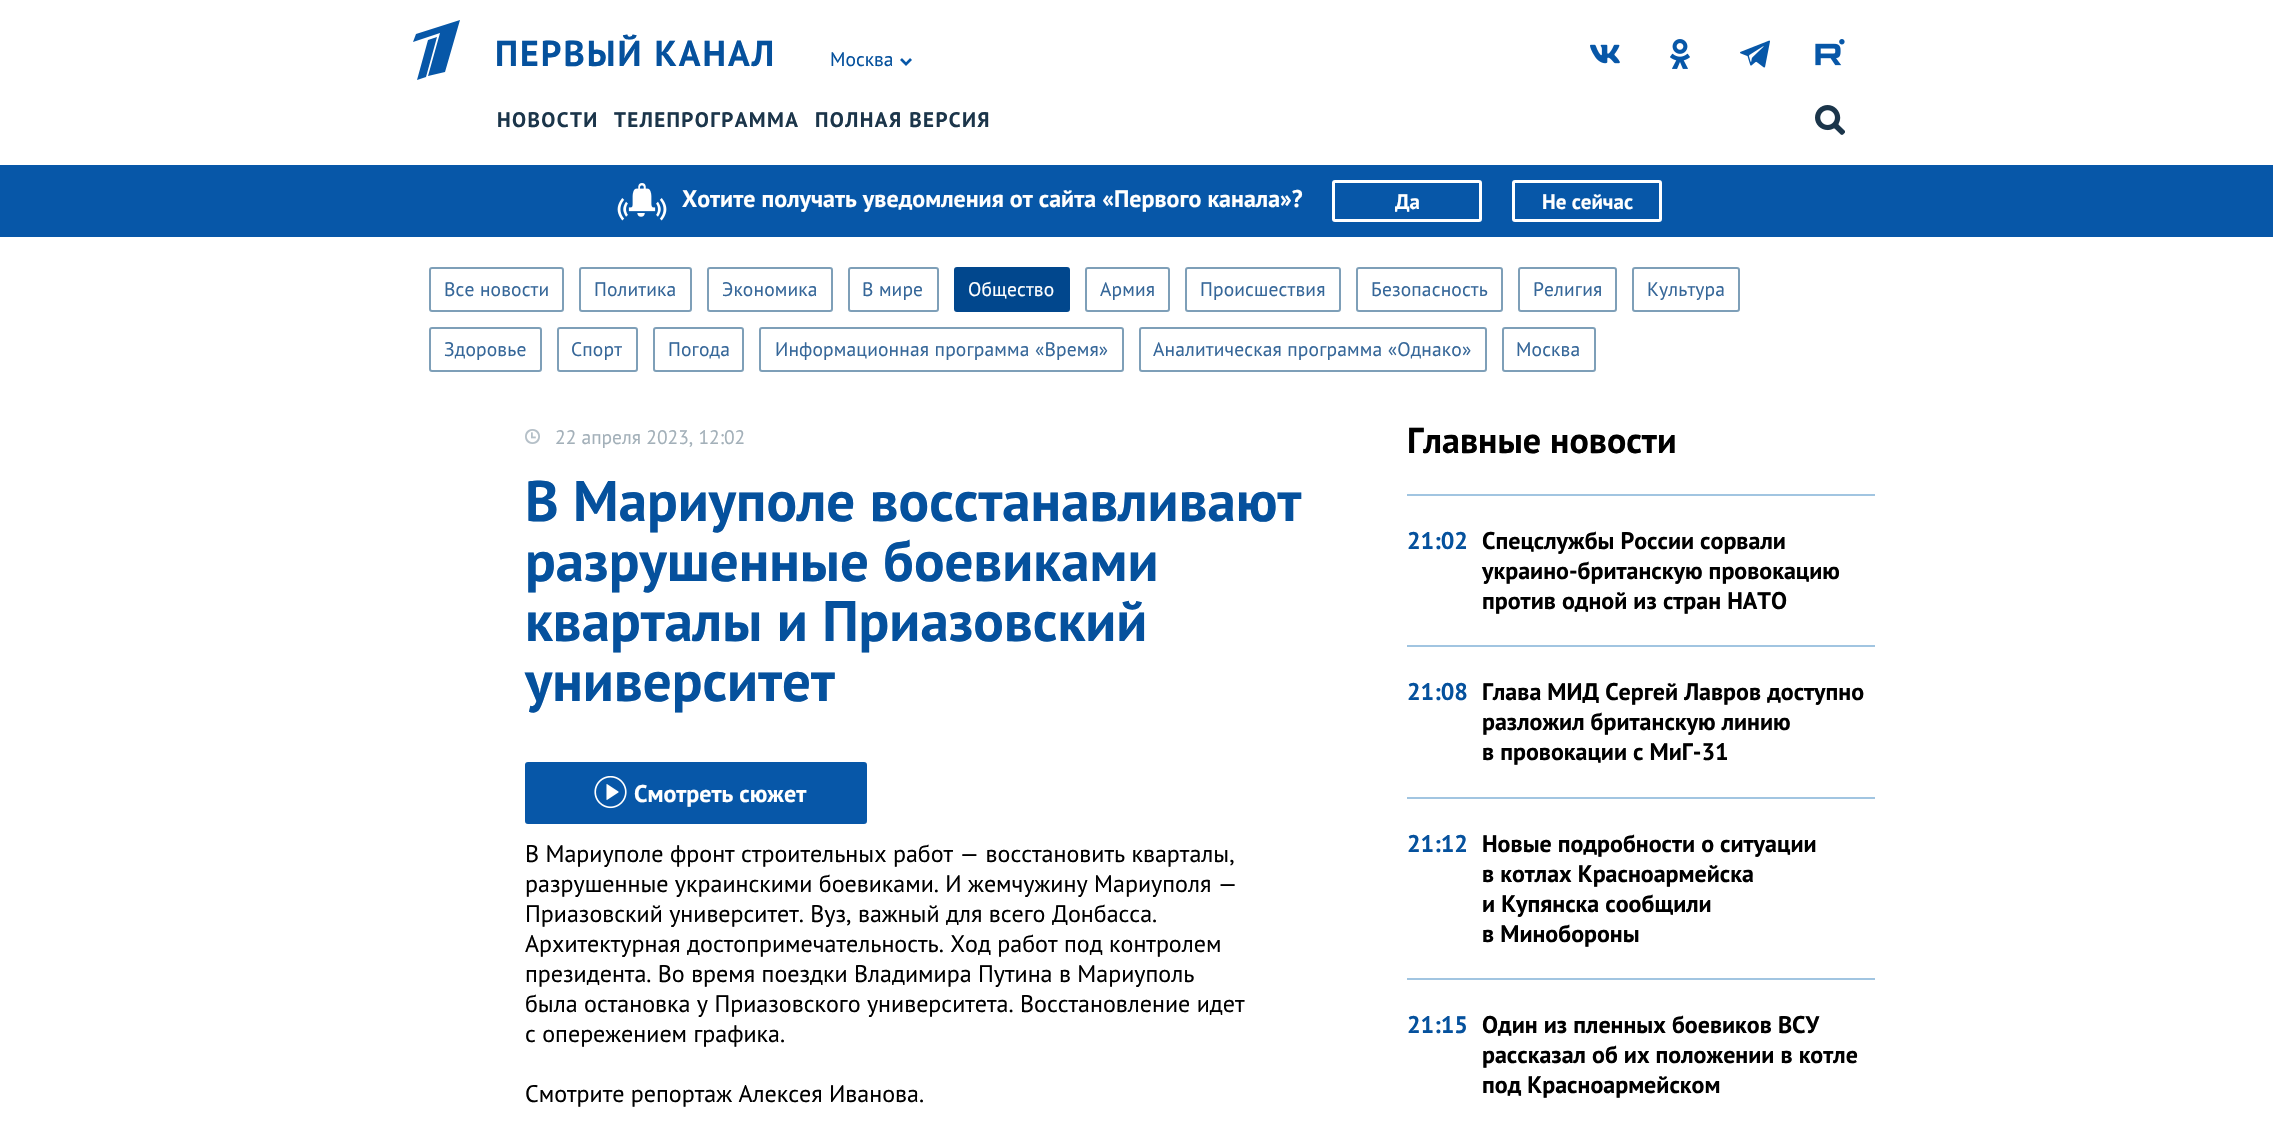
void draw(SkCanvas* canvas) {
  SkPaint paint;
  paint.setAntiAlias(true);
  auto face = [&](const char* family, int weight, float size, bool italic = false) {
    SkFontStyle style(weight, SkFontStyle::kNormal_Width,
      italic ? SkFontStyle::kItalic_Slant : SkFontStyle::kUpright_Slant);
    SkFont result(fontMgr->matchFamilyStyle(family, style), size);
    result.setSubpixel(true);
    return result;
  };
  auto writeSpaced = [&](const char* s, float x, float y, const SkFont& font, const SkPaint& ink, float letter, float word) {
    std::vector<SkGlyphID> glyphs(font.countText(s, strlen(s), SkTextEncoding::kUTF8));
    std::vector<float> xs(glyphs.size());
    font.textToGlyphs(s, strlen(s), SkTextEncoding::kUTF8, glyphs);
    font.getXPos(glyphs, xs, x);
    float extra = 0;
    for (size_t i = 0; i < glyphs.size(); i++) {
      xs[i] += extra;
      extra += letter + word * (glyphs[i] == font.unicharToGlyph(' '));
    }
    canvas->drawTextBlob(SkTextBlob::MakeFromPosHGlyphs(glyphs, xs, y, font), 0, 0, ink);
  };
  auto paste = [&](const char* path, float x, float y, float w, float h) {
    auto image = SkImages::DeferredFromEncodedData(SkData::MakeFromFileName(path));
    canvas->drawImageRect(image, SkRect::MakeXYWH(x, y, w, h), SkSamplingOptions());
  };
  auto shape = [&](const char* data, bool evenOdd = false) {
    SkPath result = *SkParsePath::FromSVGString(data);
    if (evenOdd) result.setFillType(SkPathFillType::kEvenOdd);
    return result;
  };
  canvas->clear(0xffffffff);
  paint.setColor(0xff0757a8);
  canvas->drawPath(shape("M416 34L413 42L440 33L428 76L445 72L460 20ZM428 40L417 80L426 77L437 37Z"), paint);
  paste("img/1.png", 900, 58, 12, 8);
  paste("img/2.png", 1590, 44, 30, 20);
  paste("img/3.png", 1670, 39, 20, 30);
  paste("img/4.png", 1740, 40, 30, 28);
  paste("img/5.png", 1815, 39, 30, 27);
  paste("img/6.png", 1815, 105, 30, 30);
  canvas->drawRect(SkRect::MakeXYWH(0, 165, 2273, 72), paint);
  paste("img/7.png", 617, 183, 50, 38);
  paint.setStroke(true);
  paint.setStrokeWidth(3);
  paint.setColor(0xffffffff);
  canvas->drawRoundRect(SkRect::MakeXYWH(1333.5f, 181.5f, 147, 39), 1.5f, 1.5f, paint);
  canvas->drawRoundRect(SkRect::MakeXYWH(1513.5f, 181.5f, 147, 39), 1.5f, 1.5f, paint);
  paint.setStrokeWidth(2);
  paint.setColor(0xff7e9fb8);
  canvas->drawRoundRect(SkRect::MakeXYWH(430, 268, 133, 43), 2, 2, paint);
  canvas->drawRoundRect(SkRect::MakeXYWH(580, 268, 111, 43), 2, 2, paint);
  canvas->drawRoundRect(SkRect::MakeXYWH(708, 268, 124, 43), 2, 2, paint);
  canvas->drawRoundRect(SkRect::MakeXYWH(849, 268, 89, 43), 2, 2, paint);
  paint.setStroke(false);
  paint.setColor(0xff01478d);
  canvas->drawRoundRect(SkRect::MakeXYWH(955, 268, 114, 43), 2, 2, paint);
  paint.setStroke(true);
  canvas->drawRoundRect(SkRect::MakeXYWH(955, 268, 114, 43), 2, 2, paint);
  paint.setColor(0xff7e9fb8);
  canvas->drawRoundRect(SkRect::MakeXYWH(1086, 268, 83, 43), 2, 2, paint);
  canvas->drawRoundRect(SkRect::MakeXYWH(1186, 268, 154, 43), 2, 2, paint);
  canvas->drawRoundRect(SkRect::MakeXYWH(1357, 268, 145, 43), 2, 2, paint);
  canvas->drawRoundRect(SkRect::MakeXYWH(1519, 268, 97, 43), 2, 2, paint);
  canvas->drawRoundRect(SkRect::MakeXYWH(1633, 268, 106, 43), 2, 2, paint);
  canvas->drawRoundRect(SkRect::MakeXYWH(430, 328, 111, 43), 2, 2, paint);
  canvas->drawRoundRect(SkRect::MakeXYWH(558, 328, 79, 43), 2, 2, paint);
  canvas->drawRoundRect(SkRect::MakeXYWH(654, 328, 89, 43), 2, 2, paint);
  canvas->drawRoundRect(SkRect::MakeXYWH(760, 328, 363, 43), 2, 2, paint);
  canvas->drawRoundRect(SkRect::MakeXYWH(1140, 328, 346, 43), 2, 2, paint);
  canvas->drawRoundRect(SkRect::MakeXYWH(1503, 328, 92, 43), 2, 2, paint);
  paste("img/8.png", 525, 429, 15, 15);
  paint.setStroke(false);
  paint.setColor(0xff0757a8);
  canvas->drawRoundRect(SkRect::MakeXYWH(526.5f, 763.5f, 339, 59), 1.5f, 1.5f, paint);
  paint.setStroke(true);
  paint.setStrokeWidth(3);
  canvas->drawRoundRect(SkRect::MakeXYWH(526.5f, 763.5f, 339, 59), 1.5f, 1.5f, paint);
  paste("img/9.png", 594, 776, 33, 33);
  paint.setStroke(false);
  {
    const struct { float x, y, w, h; SkColor color; } items[] = {
      {1407, 494, 468, 2, 0xffa1c5e1},
      {1407, 645, 468, 2, 0xffa1c5e1},
      {1407, 797, 468, 2, 0xffa1c5e1},
      {1407, 978, 468, 2, 0xffa1c5e1},
    };
    for (auto [x, y, w, h, color] : items) {
      paint.setColor(color);
      canvas->drawRect(SkRect::MakeXYWH(x, y, w, h), paint);
    }
  }
  auto f0 = face("PT Sans", 700, 36);
  paint.setColor(0xff05519d);
  writeSpaced("ПЕРВЫЙ КАНАЛ", 495, 66, f0, paint, 2, 0);
  auto f1 = face("PT Sans", 400, 19.5f);
  canvas->drawString("Москва", 830, 66, f1, paint);
  auto f2 = face("PT Sans", 700, 21);
  paint.setColor(0xff1b354a);
  {
    const struct { const char* s; float x, y; } items[] = {
      {"НОВОСТИ", 497, 127},
      {"ТЕЛЕПРОГРАММА", 614, 127},
      {"ПОЛНАЯ ВЕРСИЯ", 815, 127},
    };
    for (auto [s, x, y] : items) {
      writeSpaced(s, x, y, f2, paint, 1.4f, 0);
    }
  }
  auto f3 = face("PT Sans", 700, 24);
  paint.setColor(0xffffffff);
  canvas->drawString("Хотите получать уведомления от сайта «Первого канала»?", 682, 207, f3, paint);
  canvas->drawString("Да", 1395, 209, f2, paint);
  canvas->drawString("Не сейчас", 1542, 209, f2, paint);
  paint.setColor(0xff366799);
  {
    const struct { const char* s; float x, y; } items[] = {
      {"Все новости", 444, 296},
      {"Политика", 594, 296},
      {"Экономика", 722, 296},
      {"В мире", 862, 296},
    };
    for (auto [s, x, y] : items) {
      writeSpaced(s, x, y, f1, paint, 0.15f, 0);
    }
  }
  paint.setColor(0xffffffff);
  writeSpaced("Общество", 968, 296, f1, paint, 0.15f, 0);
  paint.setColor(0xff366799);
  {
    const struct { const char* s; float x, y; } items[] = {
      {"Армия", 1100, 296},
      {"Происшествия", 1200, 296},
      {"Безопасность", 1371, 296},
      {"Религия", 1533, 296},
      {"Культура", 1647, 296},
      {"Здоровье", 444, 356},
      {"Спорт", 571, 356},
      {"Погода", 668, 356},
      {"Информационная программа «Время»", 775, 356},
      {"Аналитическая программа «Однако»", 1153, 356},
      {"Москва", 1516, 356},
    };
    for (auto [s, x, y] : items) {
      writeSpaced(s, x, y, f1, paint, 0.15f, 0);
    }
  }
  paint.setColor(0xffa3b0b9);
  canvas->drawString("22 апреля 2023, 12:02", 555, 444, f1, paint);
  auto f4 = face("PT Sans", 700, 57);
  paint.setColor(0xff05519d);
  {
    const struct { const char* s; float x, y; } items[] = {
      {"В Мариуполе восстанавливают", 525, 521},
      {"разрушенные боевиками", 525, 581},
      {"кварталы и Приазовский", 525, 641},
      {"университет", 525, 701},
    };
    for (auto [s, x, y] : items) {
      canvas->drawString(s, x, y, f4, paint);
    }
  }
  paint.setColor(0xffffffff);
  canvas->drawString("Смотреть сюжет", 634, 802, f3, paint);
  auto f5 = face("PT Sans", 400, 24);
  paint.setColor(0xff000000);
  {
    const struct { const char* s; float x, y; } items[] = {
      {"В Мариуполе фронт строительных работ — восстановить кварталы,", 525, 862},
      {"разрушенные украинскими боевиками. И жемчужину Мариуполя —", 525, 892},
      {"Приазовский университет. Вуз, важный для всего Донбасса.", 525, 922},
      {"Архитектурная достопримечательность. Ход работ под контролем", 525, 952},
      {"президента. Во время поездки Владимира Путина в Мариуполь", 525, 982},
      {"была остановка у Приазовского университета. Восстановление идет", 525, 1012},
      {"с опережением графика.", 525, 1042},
      {"Смотрите репортаж Алексея Иванова.", 525, 1102},
    };
    for (auto [s, x, y] : items) {
      canvas->drawString(s, x, y, f5, paint);
    }
  }
  canvas->drawString("Главные новости", 1407, 453, f0, paint);
  paint.setColor(0xff05519d);
  canvas->drawString("21:02", 1407, 549, f3, paint);
  paint.setColor(0xff000000);
  {
    const struct { const char* s; float x, y; } items[] = {
      {"Спецслужбы России сорвали", 1482, 549},
      {"украино-британскую провокацию", 1482, 579},
      {"против одной из стран НАТО", 1482, 609},
    };
    for (auto [s, x, y] : items) {
      canvas->drawString(s, x, y, f3, paint);
    }
  }
  paint.setColor(0xff05519d);
  canvas->drawString("21:08", 1407, 700, f3, paint);
  paint.setColor(0xff000000);
  {
    const struct { const char* s; float x, y; } items[] = {
      {"Глава МИД Сергей Лавров доступно", 1482, 700},
      {"разложил британскую линию", 1482, 730},
      {"в провокации с МиГ-31", 1482, 760},
    };
    for (auto [s, x, y] : items) {
      canvas->drawString(s, x, y, f3, paint);
    }
  }
  paint.setColor(0xff05519d);
  canvas->drawString("21:12", 1407, 852, f3, paint);
  paint.setColor(0xff000000);
  {
    const struct { const char* s; float x, y; } items[] = {
      {"Новые подробности о ситуации", 1482, 852},
      {"в котлах Красноармейска", 1482, 882},
      {"и Купянска сообщили", 1482, 912},
      {"в Минобороны", 1482, 942},
    };
    for (auto [s, x, y] : items) {
      canvas->drawString(s, x, y, f3, paint);
    }
  }
  paint.setColor(0xff05519d);
  canvas->drawString("21:15", 1407, 1033, f3, paint);
  paint.setColor(0xff000000);
  {
    const struct { const char* s; float x, y; } items[] = {
      {"Один из пленных боевиков ВСУ", 1482, 1033},
      {"рассказал об их положении в котле", 1482, 1063},
      {"под Красноармейском", 1482, 1093},
    };
    for (auto [s, x, y] : items) {
      canvas->drawString(s, x, y, f3, paint);
    }
  }
}
